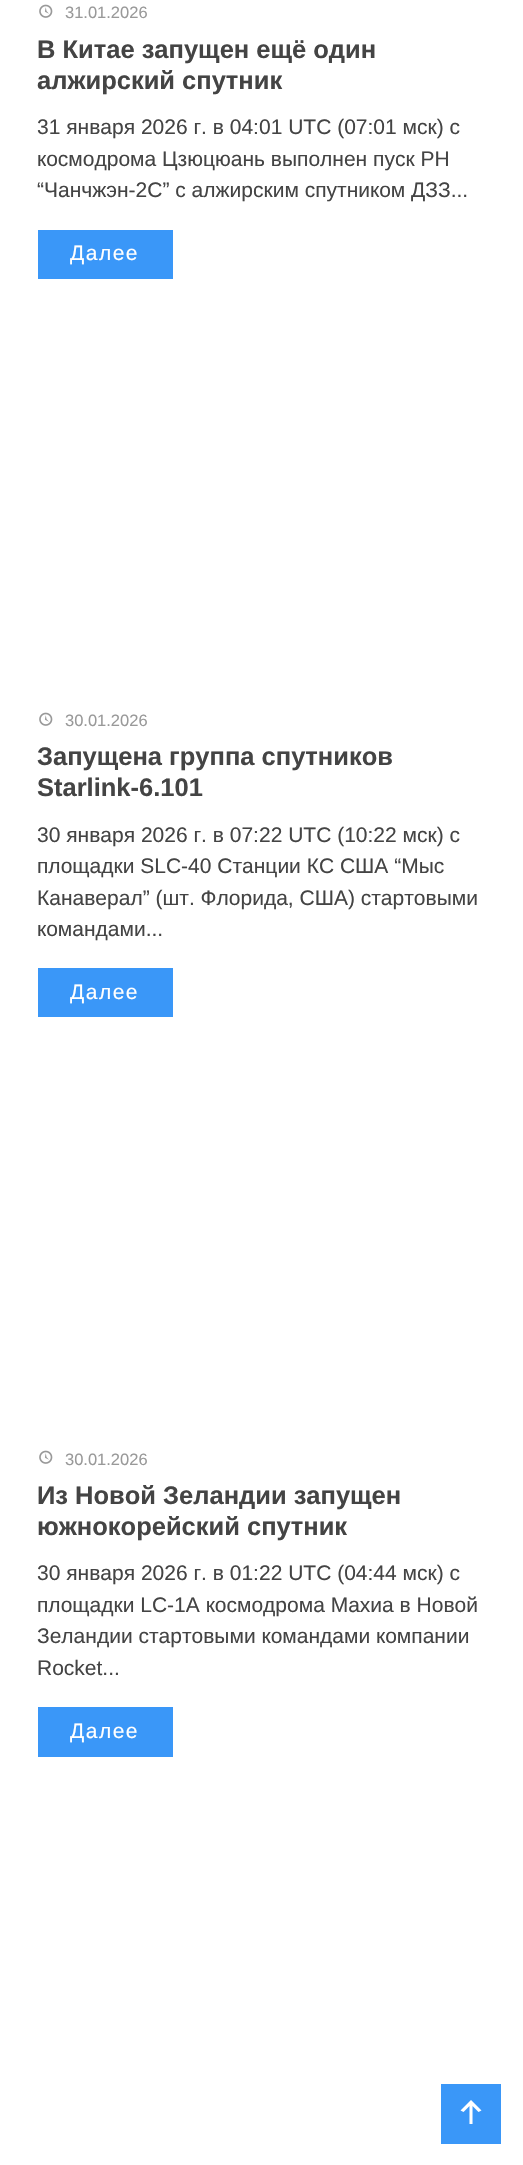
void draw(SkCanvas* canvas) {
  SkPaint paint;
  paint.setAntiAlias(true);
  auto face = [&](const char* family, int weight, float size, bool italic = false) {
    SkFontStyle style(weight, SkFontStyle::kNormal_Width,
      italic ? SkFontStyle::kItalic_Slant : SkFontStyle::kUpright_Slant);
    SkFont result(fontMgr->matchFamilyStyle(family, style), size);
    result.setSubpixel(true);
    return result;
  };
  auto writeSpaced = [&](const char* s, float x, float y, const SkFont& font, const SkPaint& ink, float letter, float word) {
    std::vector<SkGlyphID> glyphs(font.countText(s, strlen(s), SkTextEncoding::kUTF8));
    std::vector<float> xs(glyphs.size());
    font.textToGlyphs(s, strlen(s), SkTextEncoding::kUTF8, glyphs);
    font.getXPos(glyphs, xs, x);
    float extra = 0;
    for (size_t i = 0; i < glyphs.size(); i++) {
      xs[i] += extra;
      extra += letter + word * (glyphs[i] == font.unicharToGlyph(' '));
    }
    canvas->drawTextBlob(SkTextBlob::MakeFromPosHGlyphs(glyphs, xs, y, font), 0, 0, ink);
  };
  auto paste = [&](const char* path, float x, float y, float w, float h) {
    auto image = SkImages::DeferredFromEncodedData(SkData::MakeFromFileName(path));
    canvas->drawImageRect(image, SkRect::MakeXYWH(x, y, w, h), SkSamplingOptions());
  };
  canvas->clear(0xffffffff);
  paste("img/1.png", 39, 4, 14, 14);
  paint.setColor(0xff3a97f8);
  canvas->drawRect(SkRect::MakeXYWH(38, 230, 135, 49), paint);
  paste("img/1.png", 39, 712, 14, 14);
  canvas->drawRect(SkRect::MakeXYWH(38, 968, 135, 49), paint);
  paste("img/1.png", 39, 1450, 14, 14);
  canvas->drawRect(SkRect::MakeXYWH(38, 1707, 135, 50), paint);
  canvas->drawRect(SkRect::MakeXYWH(441, 2084, 60, 60), paint);
  paste("img/2.png", 460, 2100, 22, 24);
  auto f0 = face("Liberation Sans", 400, 16.5f);
  paint.setColor(0xff999999);
  canvas->drawString("31.01.2026", 65, 18, f0, paint);
  auto f1 = face("Liberation Sans", 700, 25.5f);
  paint.setColor(0xff444444);
  canvas->drawString("В Китае запущен ещё один", 37, 58, f1, paint);
  canvas->drawString("алжирский спутник", 37, 89, f1, paint);
  auto f2 = face("Liberation Sans", 400, 21);
  {
    const struct { const char* s; float x, y; } items[] = {
      {"31 января 2026 г. в 04:01 UTC (07:01 мск) с", 37, 134},
      {"космодрома Цзюцюань выполнен пуск РН", 37, 166},
      {"“Чанчжэн-2С” с алжирским спутником ДЗЗ...", 37, 197},
    };
    for (auto [s, x, y] : items) {
      canvas->drawString(s, x, y, f2, paint);
    }
  }
  paint.setColor(0xffffffff);
  writeSpaced("Далее", 70, 260, f2, paint, 1.5f, 0);
  paint.setColor(0xff999999);
  canvas->drawString("30.01.2026", 65, 726, f0, paint);
  paint.setColor(0xff444444);
  canvas->drawString("Запущена группа спутников", 37, 765, f1, paint);
  canvas->drawString("Starlink-6.101", 37, 796, f1, paint);
  {
    const struct { const char* s; float x, y; } items[] = {
      {"30 января 2026 г. в 07:22 UTC (10:22 мск) с", 37, 842},
      {"площадки SLC-40 Станции КС США “Мыс", 37, 873},
      {"Канаверал” (шт. Флорида, США) стартовыми", 37, 905},
      {"командами...", 37, 936},
    };
    for (auto [s, x, y] : items) {
      canvas->drawString(s, x, y, f2, paint);
    }
  }
  paint.setColor(0xffffffff);
  writeSpaced("Далее", 70, 999, f2, paint, 1.5f, 0);
  paint.setColor(0xff999999);
  canvas->drawString("30.01.2026", 65, 1465, f0, paint);
  paint.setColor(0xff444444);
  canvas->drawString("Из Новой Зеландии запущен", 37, 1504, f1, paint);
  canvas->drawString("южнокорейский спутник", 37, 1535, f1, paint);
  {
    const struct { const char* s; float x, y; } items[] = {
      {"30 января 2026 г. в 01:22 UTC (04:44 мск) с", 37, 1580},
      {"площадки LC-1А космодрома Махиа в Новой", 37, 1612},
      {"Зеландии стартовыми командами компании", 37, 1643},
      {"Rocket...", 37, 1675},
    };
    for (auto [s, x, y] : items) {
      canvas->drawString(s, x, y, f2, paint);
    }
  }
  paint.setColor(0xffffffff);
  writeSpaced("Далее", 70, 1738, f2, paint, 1.5f, 0);
}
